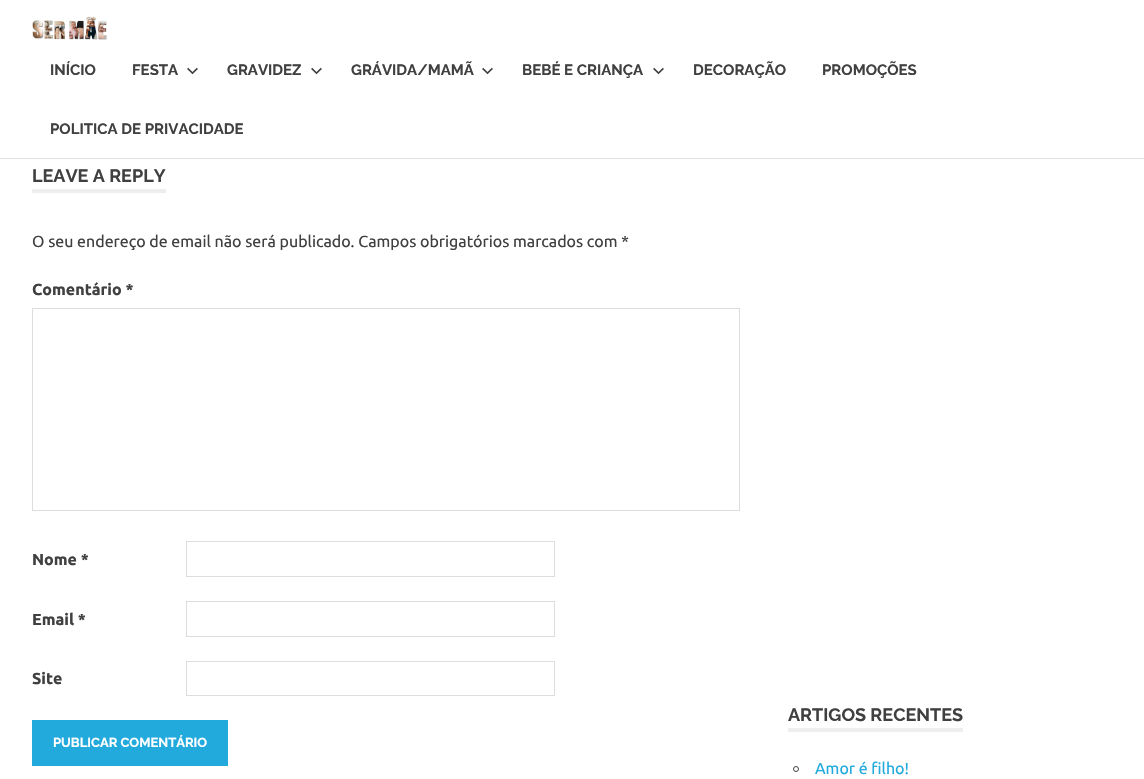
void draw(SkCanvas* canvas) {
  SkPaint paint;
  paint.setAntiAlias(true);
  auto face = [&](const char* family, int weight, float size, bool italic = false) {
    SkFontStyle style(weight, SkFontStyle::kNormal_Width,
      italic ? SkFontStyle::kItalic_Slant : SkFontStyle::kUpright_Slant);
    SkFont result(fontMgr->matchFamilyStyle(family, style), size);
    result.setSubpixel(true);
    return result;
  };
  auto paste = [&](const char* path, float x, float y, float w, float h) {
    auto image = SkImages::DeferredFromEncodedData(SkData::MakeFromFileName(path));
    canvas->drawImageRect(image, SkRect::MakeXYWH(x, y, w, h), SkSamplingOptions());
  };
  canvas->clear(0xffffffff);
  paint.setColor(0xffe0e0e0);
  canvas->drawRect(SkRect::MakeXYWH(0, 158, 1144, 1), paint);
  paste("img/1.png", 32, 16, 75, 24);
  paste("img/2.png", 187, 67, 11, 8);
  paste("img/2.png", 311, 67, 11, 8);
  paste("img/2.png", 482, 67, 11, 8);
  paste("img/2.png", 653, 67, 11, 8);
  paint.setColor(0xffeeeeee);
  canvas->drawRect(SkRect::MakeXYWH(32, 189, 134, 4), paint);
  paint.setStroke(true);
  paint.setStrokeWidth(1);
  paint.setColor(0xffdddddd);
  canvas->drawRect(SkRect::MakeXYWH(32.5f, 308.5f, 707, 202), paint);
  canvas->drawRect(SkRect::MakeXYWH(186.5f, 541.5f, 368, 35), paint);
  canvas->drawRect(SkRect::MakeXYWH(186.5f, 601.5f, 368, 35), paint);
  canvas->drawRect(SkRect::MakeXYWH(186.5f, 661.5f, 368, 34), paint);
  paint.setStroke(false);
  paint.setColor(0xff22aadd);
  canvas->drawRect(SkRect::MakeXYWH(32, 720, 196, 46), paint);
  paint.setColor(0xffeeeeee);
  canvas->drawRect(SkRect::MakeXYWH(788, 728, 175, 4), paint);
  paint.setStroke(true);
  paint.setColor(0xff404040);
  canvas->drawCircle(796, 769, 2.5f, paint);
  auto f0 = face("Raleway", 700, 15);
  paint.setStroke(false);
  {
    const struct { const char* s; float x, y; } items[] = {
      {"INÍCIO", 50, 75},
      {"FESTA", 132, 75},
      {"GRAVIDEZ", 227, 75},
      {"GRÁVIDA/MAMÃ", 351, 75},
      {"BEBÉ E CRIANÇA", 522, 75},
      {"DECORAÇÃO", 693, 75},
      {"PROMOÇÕES", 822, 75},
      {"POLITICA DE PRIVACIDADE", 50, 134},
    };
    for (auto [s, x, y] : items) {
      canvas->drawString(s, x, y, f0, paint);
    }
  }
  auto f1 = face("Raleway", 700, 18);
  canvas->drawString("LEAVE A REPLY", 32, 182, f1, paint);
  auto f2 = face("Ubuntu", 400, 16);
  canvas->drawString("O seu endereço de email não será publicado. Campos obrigatórios marcados com *", 32, 247, f2, paint);
  auto f3 = face("Ubuntu", 700, 16);
  {
    const struct { const char* s; float x, y; } items[] = {
      {"Comentário *", 32, 295},
      {"Nome *", 32, 565},
      {"Email *", 32, 625},
      {"Site", 32, 684},
    };
    for (auto [s, x, y] : items) {
      canvas->drawString(s, x, y, f3, paint);
    }
  }
  auto f4 = face("Raleway", 700, 13);
  paint.setColor(0xffffffff);
  canvas->drawString("PUBLICAR COMENTÁRIO", 53, 747, f4, paint);
  paint.setColor(0xff404040);
  canvas->drawString("ARTIGOS RECENTES", 788, 721, f1, paint);
  paint.setColor(0xff22aadd);
  canvas->drawString("Amor é filho!", 815, 774, f2, paint);
}
